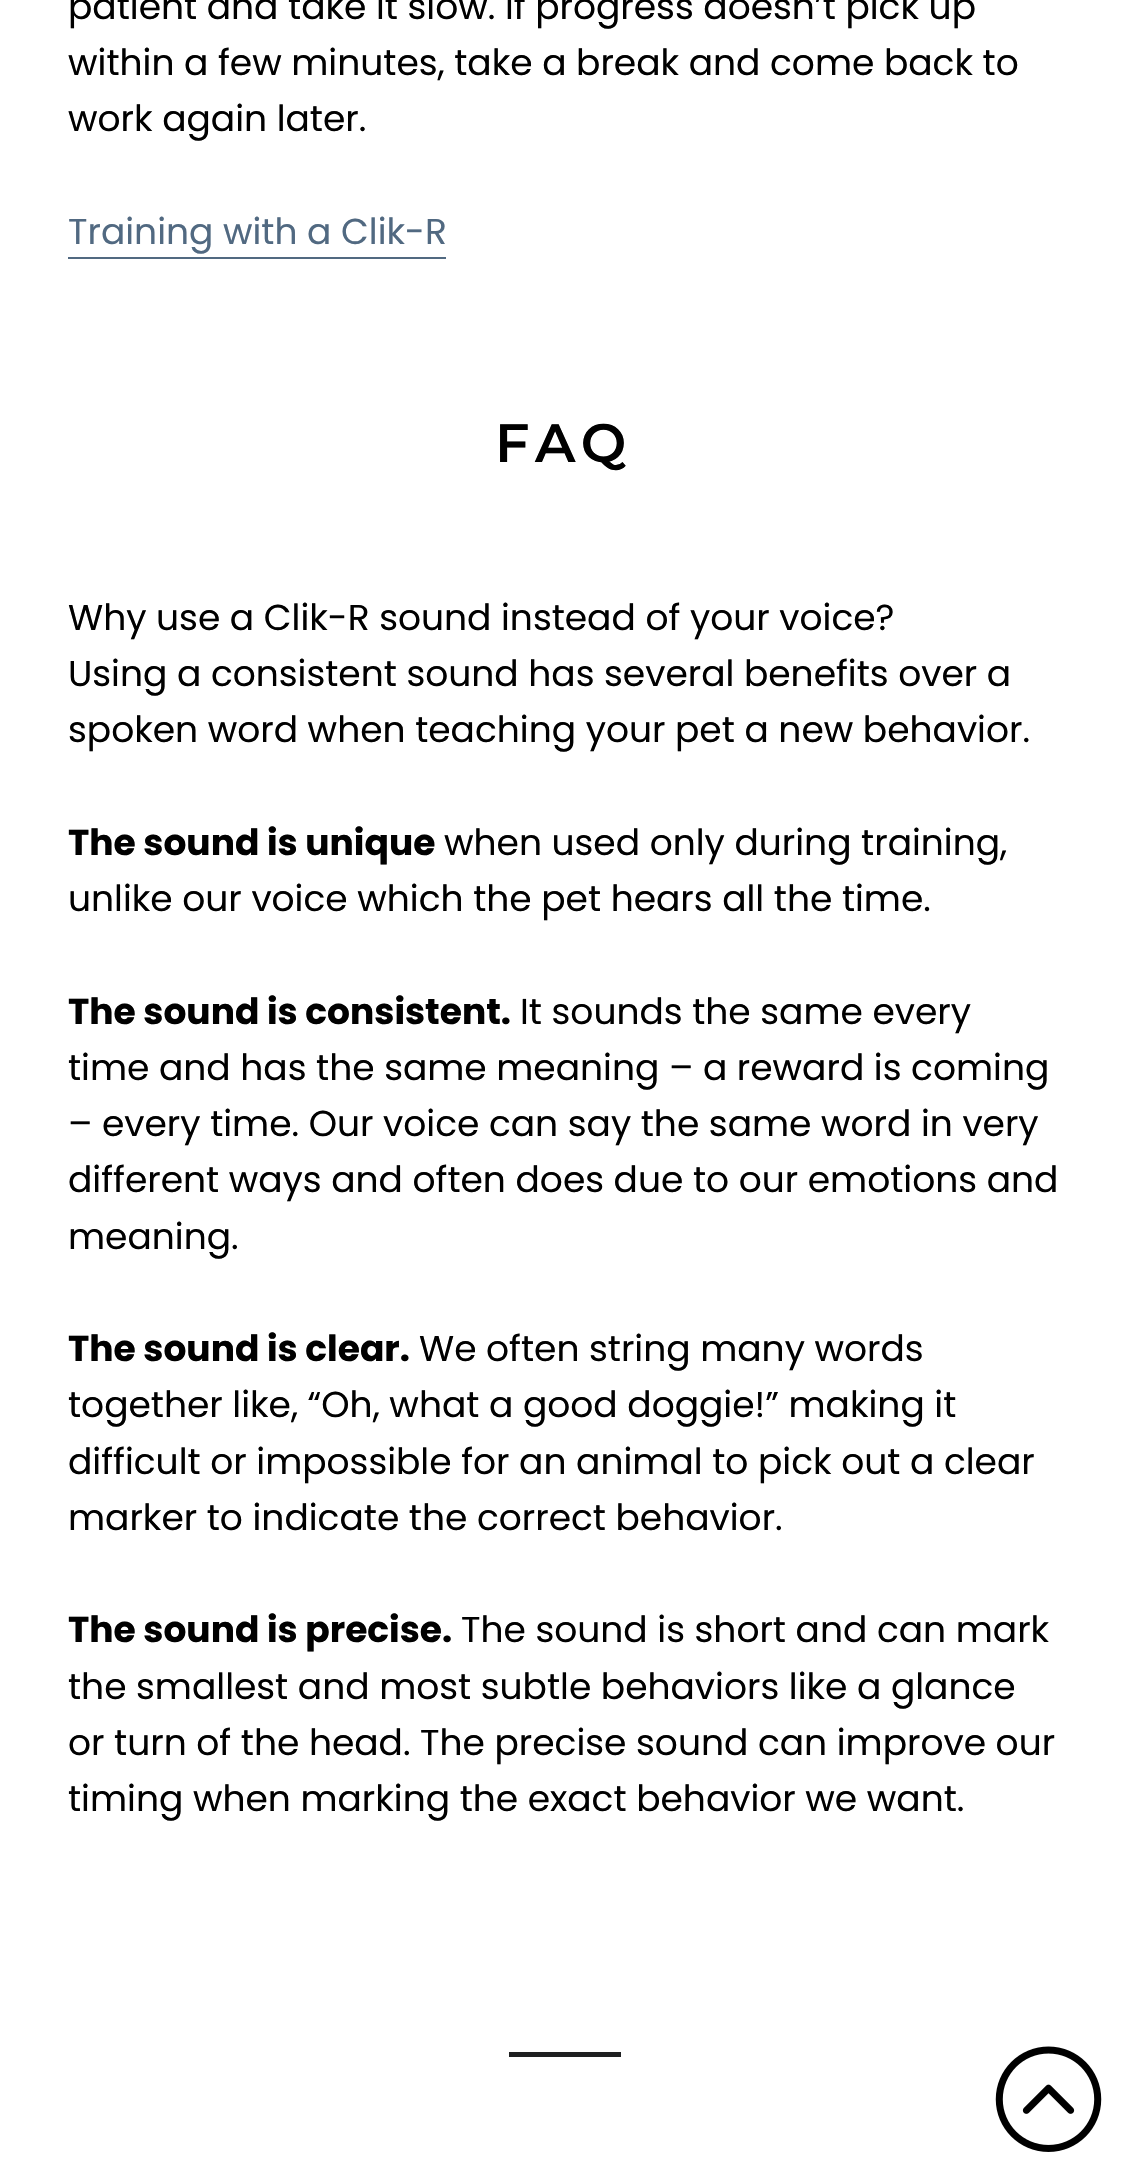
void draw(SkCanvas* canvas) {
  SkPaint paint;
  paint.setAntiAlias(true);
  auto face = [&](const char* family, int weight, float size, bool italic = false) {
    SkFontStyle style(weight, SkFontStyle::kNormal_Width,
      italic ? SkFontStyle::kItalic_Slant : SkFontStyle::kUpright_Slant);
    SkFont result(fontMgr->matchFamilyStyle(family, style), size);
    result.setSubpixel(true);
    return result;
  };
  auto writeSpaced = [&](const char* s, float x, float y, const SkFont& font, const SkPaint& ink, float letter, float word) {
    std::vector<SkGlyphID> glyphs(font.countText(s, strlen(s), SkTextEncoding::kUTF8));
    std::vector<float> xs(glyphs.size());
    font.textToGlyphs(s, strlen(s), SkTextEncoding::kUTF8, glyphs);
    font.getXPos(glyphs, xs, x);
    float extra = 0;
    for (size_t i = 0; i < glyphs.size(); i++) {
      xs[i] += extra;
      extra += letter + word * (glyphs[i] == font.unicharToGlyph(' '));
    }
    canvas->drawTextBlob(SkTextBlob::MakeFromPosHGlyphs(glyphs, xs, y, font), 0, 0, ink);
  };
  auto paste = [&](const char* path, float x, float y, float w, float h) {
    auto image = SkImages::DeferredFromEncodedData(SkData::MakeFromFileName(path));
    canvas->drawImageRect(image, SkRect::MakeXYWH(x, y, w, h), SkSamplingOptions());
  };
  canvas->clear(0xffffffff);
  paint.setColor(0xff516981);
  canvas->drawRect(SkRect::MakeXYWH(68, 257, 378, 2), paint);
  paint.setColor(0xff1f2021);
  canvas->drawRect(SkRect::MakeXYWH(509, 2052, 112, 5), paint);
  paste("img/1.png", 995, 2046, 107, 106);
  auto f0 = face("Poppins", 400, 36);
  paint.setColor(0xff000000);
  {
    const struct { const char* s; float x, y; } items[] = {
      {"patient and take it slow. If progress doesn’t pick up", 68, 19},
      {"within a few minutes, take a break and come back to", 68, 75},
      {"work again later.", 68, 131},
    };
    for (auto [s, x, y] : items) {
      canvas->drawString(s, x, y, f0, paint);
    }
  }
  paint.setColor(0xff516981);
  canvas->drawString("Training with a Clik-R", 68, 244, f0, paint);
  auto f1 = face("Montserrat", 600, 54);
  paint.setColor(0xff000000);
  writeSpaced("FAQ", 495, 462, f1, paint, 5.5f, 0);
  {
    const struct { const char* s; float x, y; } items[] = {
      {"Why use a Clik-R sound instead of your voice?", 68, 630},
      {"Using a consistent sound has several benefits over a", 68, 686},
      {"spoken word when teaching your pet a new behavior.", 68, 742},
    };
    for (auto [s, x, y] : items) {
      canvas->drawString(s, x, y, f0, paint);
    }
  }
  auto f2 = face("Poppins", 700, 36);
  canvas->drawString("The sound is unique", 68, 855, f2, paint);
  canvas->drawString("when used only during training,", 444, 855, f0, paint);
  canvas->drawString("unlike our voice which the pet hears all the time.", 68, 911, f0, paint);
  canvas->drawString("The sound is consistent.", 68, 1024, f2, paint);
  {
    const struct { const char* s; float x, y; } items[] = {
      {"It sounds the same every", 520, 1024},
      {"time and has the same meaning – a reward is coming", 68, 1080},
      {"– every time. Our voice can say the same word in very", 68, 1136},
      {"different ways and often does due to our emotions and", 68, 1192},
      {"meaning.", 68, 1249},
    };
    for (auto [s, x, y] : items) {
      canvas->drawString(s, x, y, f0, paint);
    }
  }
  canvas->drawString("The sound is clear.", 68, 1361, f2, paint);
  {
    const struct { const char* s; float x, y; } items[] = {
      {"We often string many words", 419, 1361},
      {"together like, “Oh, what a good doggie!” making it", 68, 1417},
      {"difficult or impossible for an animal to pick out a clear", 68, 1474},
      {"marker to indicate the correct behavior.", 68, 1530},
    };
    for (auto [s, x, y] : items) {
      canvas->drawString(s, x, y, f0, paint);
    }
  }
  canvas->drawString("The sound is precise.", 68, 1642, f2, paint);
  {
    const struct { const char* s; float x, y; } items[] = {
      {"The sound is short and can mark", 461, 1642},
      {"the smallest and most subtle behaviors like a glance", 68, 1699},
      {"or turn of the head. The precise sound can improve our", 68, 1755},
      {"timing when marking the exact behavior we want.", 68, 1811},
    };
    for (auto [s, x, y] : items) {
      canvas->drawString(s, x, y, f0, paint);
    }
  }
}
